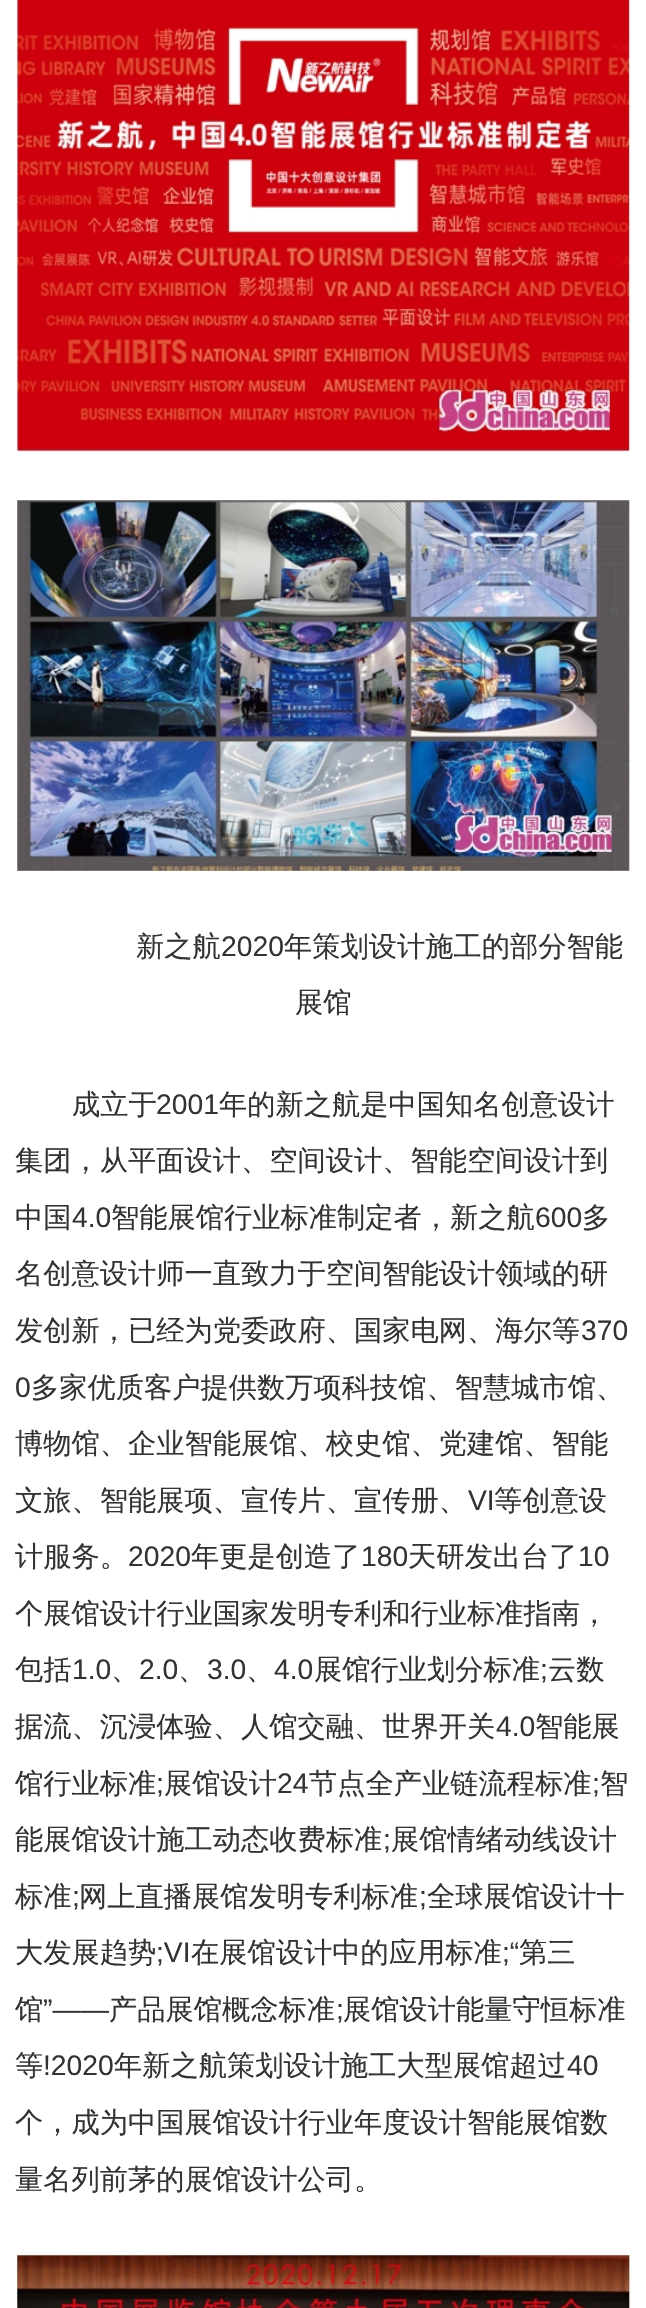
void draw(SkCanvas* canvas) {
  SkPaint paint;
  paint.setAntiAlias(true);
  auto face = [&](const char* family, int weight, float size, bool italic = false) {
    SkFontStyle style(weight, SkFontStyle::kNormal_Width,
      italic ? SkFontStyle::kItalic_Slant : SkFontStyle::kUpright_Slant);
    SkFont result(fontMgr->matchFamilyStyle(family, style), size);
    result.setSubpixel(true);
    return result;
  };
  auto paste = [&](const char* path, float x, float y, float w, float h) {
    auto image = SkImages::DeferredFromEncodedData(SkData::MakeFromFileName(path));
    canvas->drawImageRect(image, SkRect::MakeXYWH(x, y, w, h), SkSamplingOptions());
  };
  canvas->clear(0xffffffff);
  paste("img/1.png", 16, 0, 615, 453);
  paste("img/2.png", 17, 500, 613, 372);
  paste("img/3.png", 16, 2254, 615, 54);
  auto f0 = face("WenQuanYi Zen Hei", 500, 28.25f);
  paint.setColor(0xff333333);
  canvas->drawString("新之航", 136, 956, f0, paint);
  auto f1 = face("Liberation Sans", 400, 28.25f);
  canvas->drawString("2020", 221, 956, f1, paint);
  {
    const struct { const char* s; float x, y; } items[] = {
      {"年策划设计施工的部分智能", 284, 956},
      {"展馆", 295, 1012},
      {"成立于", 72, 1114},
    };
    for (auto [s, x, y] : items) {
      canvas->drawString(s, x, y, f0, paint);
    }
  }
  canvas->drawString("2001", 156, 1114, f1, paint);
  {
    const struct { const char* s; float x, y; } items[] = {
      {"年的新之航是中国知名创意设计", 219, 1114},
      {"集团，从平面设计、空间设计、智能空间设计到", 15, 1170},
      {"中国", 15, 1227},
    };
    for (auto [s, x, y] : items) {
      canvas->drawString(s, x, y, f0, paint);
    }
  }
  canvas->drawString("4.0", 72, 1227, f1, paint);
  canvas->drawString("智能展馆行业标准制定者，新之航", 111, 1227, f0, paint);
  canvas->drawString("600", 535, 1227, f1, paint);
  {
    const struct { const char* s; float x, y; } items[] = {
      {"多", 582, 1227},
      {"名创意设计师一直致力于空间智能设计领域的研", 15, 1283},
      {"发创新，已经为党委政府、国家电网、海尔等", 15, 1340},
    };
    for (auto [s, x, y] : items) {
      canvas->drawString(s, x, y, f0, paint);
    }
  }
  canvas->drawString("370", 581, 1340, f1, paint);
  canvas->drawString("0", 15, 1397, f1, paint);
  {
    const struct { const char* s; float x, y; } items[] = {
      {"多家优质客户提供数万项科技馆、智慧城市馆、", 31, 1397},
      {"博物馆、企业智能展馆、校史馆、党建馆、智能", 15, 1453},
      {"文旅、智能展项、宣传片、宣传册、", 15, 1510},
    };
    for (auto [s, x, y] : items) {
      canvas->drawString(s, x, y, f0, paint);
    }
  }
  canvas->drawString("VI", 468, 1510, f1, paint);
  canvas->drawString("等创意设", 494, 1510, f0, paint);
  canvas->drawString("计服务。", 15, 1566, f0, paint);
  canvas->drawString("2020", 128, 1566, f1, paint);
  canvas->drawString("年更是创造了", 191, 1566, f0, paint);
  canvas->drawString("180", 361, 1566, f1, paint);
  canvas->drawString("天研发出台了", 408, 1566, f0, paint);
  canvas->drawString("10", 578, 1566, f1, paint);
  canvas->drawString("个展馆设计行业国家发明专利和行业标准指南，", 15, 1623, f0, paint);
  canvas->drawString("包括", 15, 1679, f0, paint);
  canvas->drawString("1.0", 72, 1679, f1, paint);
  canvas->drawString("、", 111, 1679, f0, paint);
  canvas->drawString("2.0", 139, 1679, f1, paint);
  canvas->drawString("、", 178, 1679, f0, paint);
  canvas->drawString("3.0", 207, 1679, f1, paint);
  canvas->drawString("、", 246, 1679, f0, paint);
  canvas->drawString("4.0", 274, 1679, f1, paint);
  canvas->drawString("展馆行业划分标准", 314, 1679, f0, paint);
  canvas->drawString(";", 540, 1679, f1, paint);
  canvas->drawString("云数", 548, 1679, f0, paint);
  canvas->drawString("据流、沉浸体验、人馆交融、世界开关", 15, 1736, f0, paint);
  canvas->drawString("4.0", 496, 1736, f1, paint);
  canvas->drawString("智能展", 535, 1736, f0, paint);
  canvas->drawString("馆行业标准", 15, 1793, f0, paint);
  canvas->drawString(";", 156, 1793, f1, paint);
  canvas->drawString("展馆设计", 164, 1793, f0, paint);
  canvas->drawString("24", 277, 1793, f1, paint);
  canvas->drawString("节点全产业链流程标准", 309, 1793, f0, paint);
  canvas->drawString(";", 592, 1793, f1, paint);
  canvas->drawString("智", 600, 1793, f0, paint);
  canvas->drawString("能展馆设计施工动态收费标准", 15, 1849, f0, paint);
  canvas->drawString(";", 383, 1849, f1, paint);
  canvas->drawString("展馆情绪动线设计", 391, 1849, f0, paint);
  canvas->drawString("标准", 15, 1906, f0, paint);
  canvas->drawString(";", 72, 1906, f1, paint);
  canvas->drawString("网上直播展馆发明专利标准", 79, 1906, f0, paint);
  canvas->drawString(";", 419, 1906, f1, paint);
  canvas->drawString("全球展馆设计十", 427, 1906, f0, paint);
  canvas->drawString("大发展趋势", 15, 1962, f0, paint);
  canvas->drawString(";VI", 156, 1962, f1, paint);
  canvas->drawString("在展馆设计中的应用标准", 191, 1962, f0, paint);
  canvas->drawString(";“", 502, 1962, f1, paint);
  canvas->drawString("第三", 519, 1962, f0, paint);
  canvas->drawString("馆", 15, 2019, f0, paint);
  canvas->drawString("”——", 43, 2019, f1, paint);
  canvas->drawString("产品展馆概念标准", 109, 2019, f0, paint);
  canvas->drawString(";", 336, 2019, f1, paint);
  canvas->drawString("展馆设计能量守恒标准", 343, 2019, f0, paint);
  canvas->drawString("等", 15, 2075, f0, paint);
  canvas->drawString("!2020", 43, 2075, f1, paint);
  canvas->drawString("年新之航策划设计施工大型展馆超过", 114, 2075, f0, paint);
  canvas->drawString("40", 567, 2075, f1, paint);
  canvas->drawString("个，成为中国展馆设计行业年度设计智能展馆数", 15, 2132, f0, paint);
  canvas->drawString("量名列前茅的展馆设计公司。", 15, 2189, f0, paint);
}
